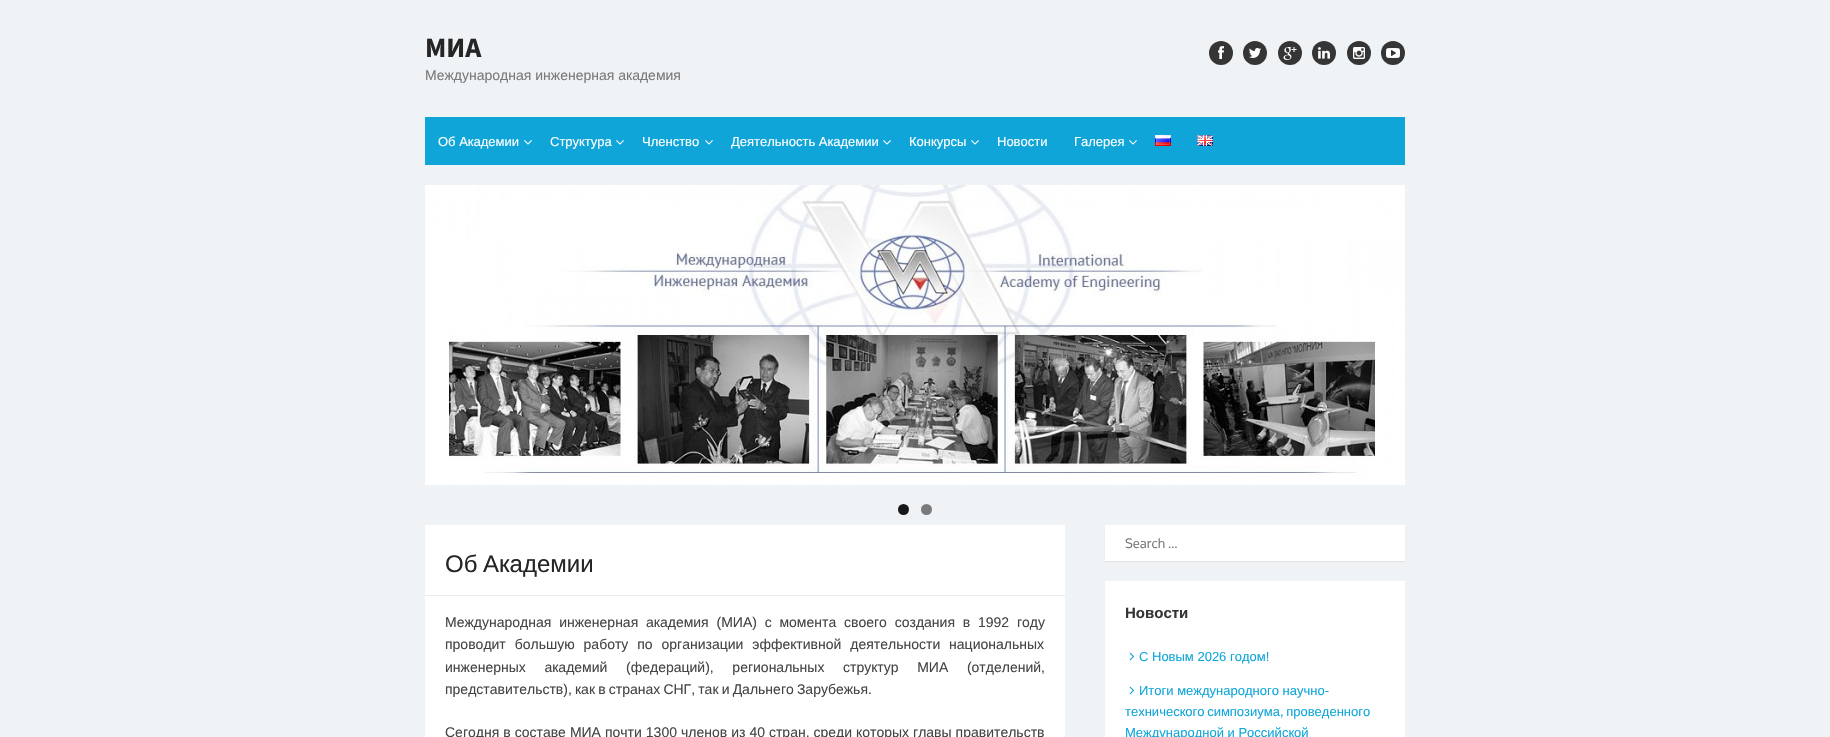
void draw(SkCanvas* canvas) {
  SkPaint paint;
  paint.setAntiAlias(true);
  auto face = [&](const char* family, int weight, float size, bool italic = false) {
    SkFontStyle style(weight, SkFontStyle::kNormal_Width,
      italic ? SkFontStyle::kItalic_Slant : SkFontStyle::kUpright_Slant);
    SkFont result(fontMgr->matchFamilyStyle(family, style), size);
    result.setSubpixel(true);
    return result;
  };
  auto writeSpaced = [&](const char* s, float x, float y, const SkFont& font, const SkPaint& ink, float letter, float word) {
    std::vector<SkGlyphID> glyphs(font.countText(s, strlen(s), SkTextEncoding::kUTF8));
    std::vector<float> xs(glyphs.size());
    font.textToGlyphs(s, strlen(s), SkTextEncoding::kUTF8, glyphs);
    font.getXPos(glyphs, xs, x);
    float extra = 0;
    for (size_t i = 0; i < glyphs.size(); i++) {
      xs[i] += extra;
      extra += letter + word * (glyphs[i] == font.unicharToGlyph(' '));
    }
    canvas->drawTextBlob(SkTextBlob::MakeFromPosHGlyphs(glyphs, xs, y, font), 0, 0, ink);
  };
  auto paste = [&](const char* path, float x, float y, float w, float h) {
    auto image = SkImages::DeferredFromEncodedData(SkData::MakeFromFileName(path));
    canvas->drawImageRect(image, SkRect::MakeXYWH(x, y, w, h), SkSamplingOptions());
  };
  canvas->clear(0xfff0f3f5);
  paint.setColor(0xff353535);
  canvas->drawCircle(1221, 53, 12, paint);
  paste("img/1.png", 1218, 46, 6, 13);
  canvas->drawCircle(1255, 53, 12, paint);
  paste("img/2.png", 1249, 48, 12, 10);
  canvas->drawCircle(1290, 53, 12, paint);
  paste("img/3.png", 1283, 47, 14, 13);
  canvas->drawCircle(1324, 53, 12, paint);
  paste("img/4.png", 1318, 47, 12, 12);
  canvas->drawCircle(1359, 53, 12, paint);
  paste("img/5.png", 1353, 47, 12, 12);
  canvas->drawCircle(1393, 53, 12, paint);
  paste("img/6.png", 1386, 48, 14, 10);
  paint.setColor(0xff0fa5d9);
  canvas->drawRect(SkRect::MakeXYWH(425, 117, 980, 48), paint);
  paste("img/7.png", 524, 140, 8, 5);
  paste("img/7.png", 616, 140, 8, 5);
  paste("img/7.png", 705, 140, 8, 5);
  paste("img/7.png", 883, 140, 8, 5);
  paste("img/7.png", 971, 140, 8, 5);
  paste("img/7.png", 1129, 140, 8, 5);
  paste("img/8.png", 1155, 135, 16, 11);
  paste("img/9.png", 1197, 135, 16, 11);
  paste("img/10.png", 425, 185, 980, 300);
  paint.setColor(0xff181819);
  canvas->drawCircle(903.5f, 509.5f, 5.5f, paint);
  paint.setColor(0xff787a7b);
  canvas->drawCircle(926.5f, 509.5f, 5.5f, paint);
  paint.setColor(0xffffffff);
  canvas->drawRect(SkRect::MakeXYWH(425, 525, 640, 212), paint);
  paint.setColor(0xffededed);
  canvas->drawRect(SkRect::MakeXYWH(425, 595, 640, 1), paint);
  paint.setColor(0x0f000000);
  paint.setMaskFilter(SkMaskFilter::MakeBlur(kNormal_SkBlurStyle, 0.5f));
  canvas->drawRect(SkRect::MakeXYWH(1105, 526, 300, 36), paint);
  paint.setMaskFilter(nullptr);
  paint.setColor(0xffffffff);
  canvas->drawRect(SkRect::MakeXYWH(1105, 525, 300, 36), paint);
  canvas->drawRect(SkRect::MakeXYWH(1105, 581, 300, 156), paint);
  paste("img/11.png", 1129, 652, 6, 9);
  paste("img/11.png", 1129, 686, 6, 9);
  auto f0 = face("Source Sans Pro", 700, 28);
  paint.setColor(0xff252525);
  canvas->drawString("МИА", 425, 57, f0, paint);
  auto f1 = face("Liberation Sans", 400, 14);
  paint.setColor(0xff787a7b);
  canvas->drawString("Международная инженерная академия", 425, 80, f1, paint);
  auto f2 = face("Liberation Sans", 400, 13);
  paint.setColor(0xffffffff);
  {
    const struct { const char* s; float x, y; } items[] = {
      {"Об Академии", 438, 146},
      {"Структура", 550, 146},
      {"Членство", 642, 146},
      {"Деятельность Академии", 731, 146},
      {"Конкурсы", 909, 146},
      {"Новости", 997, 146},
      {"Галерея", 1074, 146},
    };
    for (auto [s, x, y] : items) {
      canvas->drawString(s, x, y, f2, paint);
    }
  }
  auto f3 = face("Liberation Sans", 400, 24);
  paint.setColor(0xff252525);
  writeSpaced("Об Академии", 445, 572, f3, paint, 0, -1);
  paint.setColor(0xff454545);
  writeSpaced("Международная инженерная академия (МИА) с момента своего создания в 1992 году", 445, 627, f1, paint, 0, 3.9f);
  writeSpaced("проводит большую работу по организации эффективной деятельности национальных", 445, 649, f1, paint, 0, 5);
  writeSpaced("инженерных академий (федераций), региональных структур МИА (отделений,", 445, 672, f1, paint, 0, 14.75f);
  writeSpaced("представительств), как в странах СНГ, так и Дальнего Зарубежья.", 445, 694, f1, paint, 0, -0.75f);
  writeSpaced("Сегодня в составе МИА почти 1300 членов из 40 стран, среди которых главы правительств", 445, 737, f1, paint, 0, 0.1f);
  auto f4 = face("Oxygen", 400, 13);
  paint.setColor(0xff757575);
  canvas->drawString("Search …", 1125, 548, f4, paint);
  auto f5 = face("Liberation Sans", 700, 15);
  paint.setColor(0xff353535);
  canvas->drawString("Новости", 1125, 618, f5, paint);
  paint.setColor(0xff0fa5d9);
  canvas->drawString("С Новым 2026 годом!", 1139, 661, f2, paint);
  canvas->drawString("Итоги международного научно-", 1139, 695, f2, paint);
  writeSpaced("технического симпозиума, проведенного", 1125, 716, f2, paint, 0, -1);
  canvas->drawString("Международной и Российской", 1125, 737, f2, paint);
}
